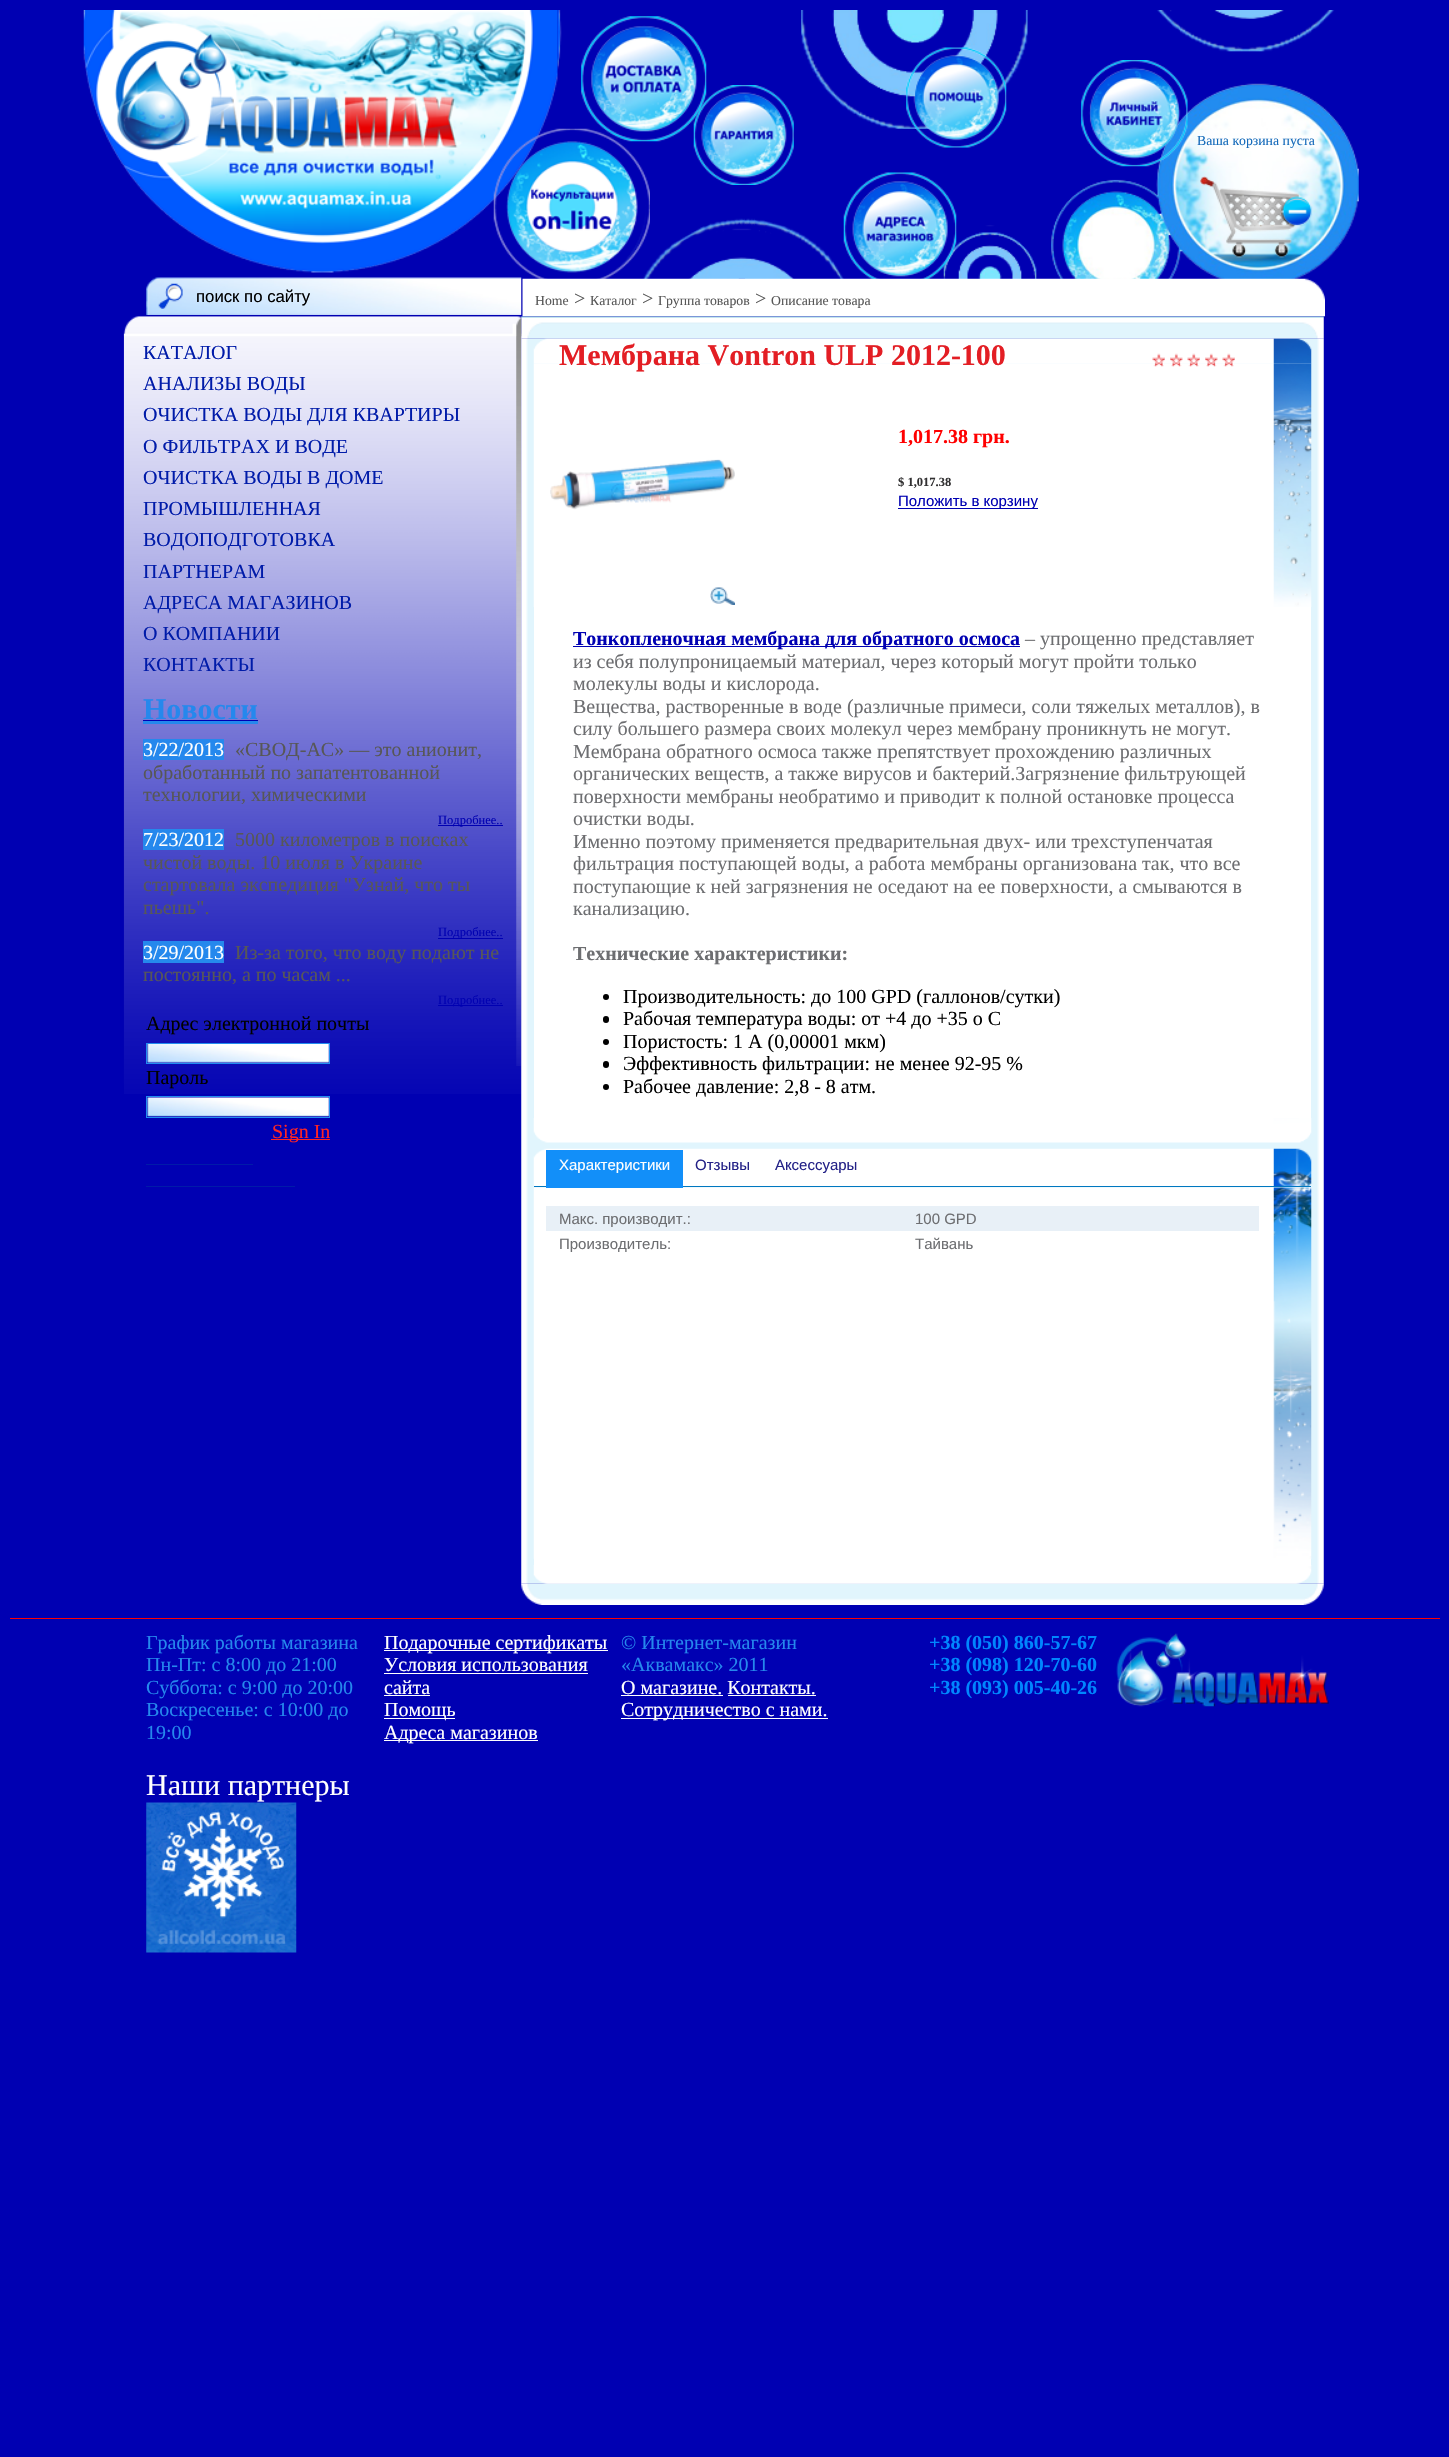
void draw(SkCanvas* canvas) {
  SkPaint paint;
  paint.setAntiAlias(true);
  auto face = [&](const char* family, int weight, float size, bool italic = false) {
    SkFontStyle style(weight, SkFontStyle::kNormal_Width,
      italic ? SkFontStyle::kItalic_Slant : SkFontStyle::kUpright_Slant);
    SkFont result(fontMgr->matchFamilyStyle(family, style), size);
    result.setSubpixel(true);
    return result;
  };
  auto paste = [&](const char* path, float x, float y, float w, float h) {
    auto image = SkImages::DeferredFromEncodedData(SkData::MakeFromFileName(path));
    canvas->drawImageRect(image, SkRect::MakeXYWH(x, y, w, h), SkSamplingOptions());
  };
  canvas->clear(0xff0000b2);
  paste("img/1.png", 557, 10, 802, 269);
  paste("img/9.png", 83, 10, 475, 263);
  paste("img/11.png", 146, 277, 376, 38);
  paste("img/6.png", 493, 128, 157, 151);
  paste("img/2.png", 581, 16, 126, 126);
  paste("img/3.png", 693, 85, 101, 100);
  paste("img/4.png", 906, 47, 101, 101);
  paste("img/5.png", 1081, 60, 107, 107);
  paste("img/7.png", 1200, 176, 112, 82);
  paste("img/8.png", 843, 172, 114, 107);
  paste("img/10.png", 158, 283, 25, 26);
  paste("img/13.png", 123, 333, 399, 761);
  paste("img/14.png", 516, 333, 6, 733);
  paste("img/18.png", 521, 316, 803, 23);
  paste("img/12.png", 522, 278, 803, 39);
  paste("img/15.png", 123, 316, 399, 21);
  {
    const struct { float x, y, w, h; SkColor color; } items[] = {
      {143, 721, 115, 3, 0xff2588ed},
      {143, 720, 115, 1, 0xff0000b2},
      {438, 825, 65, 1, 0xff0000b2},
      {143, 739, 81, 21, 0xff2588ed},
      {438, 938, 65, 1, 0xff0000b2},
      {143, 829, 81, 21, 0xff2588ed},
      {438, 1005, 65, 1, 0xff0000b2},
      {143, 941, 81, 22, 0xff2588ed},
    };
    for (auto [x, y, w, h, color] : items) {
      paint.setColor(color);
      canvas->drawRect(SkRect::MakeXYWH(x, y, w, h), paint);
    }
  }
  paste("img/16.png", 147, 1044, 182, 19);
  paint.setStroke(true);
  paint.setStrokeWidth(1);
  paint.setColor(0xff228cf0);
  canvas->drawRect(SkRect::MakeXYWH(146.5f, 1043.5f, 183, 20), paint);
  paste("img/17.png", 147, 1097, 182, 20);
  canvas->drawRect(SkRect::MakeXYWH(146.5f, 1096.5f, 183, 21), paint);
  paint.setStroke(false);
  {
    const struct { float x, y, w, h; SkColor color; } items[] = {
      {271, 1139, 59, 1, 0xffff2424},
      {146, 1164, 107, 1, 0xff001ba9},
      {146, 1186, 149, 1, 0xff001ba9},
    };
    for (auto [x, y, w, h, color] : items) {
      paint.setColor(color);
      canvas->drawRect(SkRect::MakeXYWH(x, y, w, h), paint);
    }
  }
  paste("img/19.png", 521, 338, 803, 1246);
  paste("img/20.png", 533, 338, 779, 26);
  paste("img/25.png", 533, 363, 779, 244);
  paste("img/21.png", 1152, 353, 13, 14);
  paste("img/22.png", 1170, 353, 13, 14);
  paste("img/23.png", 1187, 353, 13, 14);
  paste("img/24.png", 1205, 353, 13, 14);
  paste("img/23.png", 1222, 353, 13, 14);
  paint.setColor(0xffffffff);
  canvas->drawRect(SkRect::MakeXYWH(534, 607, 777, 511), paint);
  paste("img/26.png", 550, 459, 185, 51);
  paste("img/27.png", 710, 587, 25, 18);
  paint.setColor(0xff0000b2);
  canvas->drawRect(SkRect::MakeXYWH(898, 508, 140, 1), paint);
  canvas->drawRect(SkRect::MakeXYWH(573, 646, 447, 1), paint);
  paint.setColor(0xff000000);
  canvas->drawCircle(606, 997, 3, paint);
  canvas->drawRoundRect(SkRect::MakeXYWH(603, 1016, 6, 7), 3, 3, paint);
  canvas->drawCircle(606, 1042, 3, paint);
  canvas->drawRoundRect(SkRect::MakeXYWH(603, 1061, 6, 7), 3, 3, paint);
  canvas->drawCircle(606, 1087, 3, paint);
  paste("img/28.png", 533, 1118, 779, 25);
  paste("img/29.png", 533, 1148, 779, 39);
  paint.setColor(0xff0077c0);
  canvas->drawRect(SkRect::MakeXYWH(534, 1186, 777, 1), paint);
  paint.setColor(0xffffffff);
  canvas->drawRect(SkRect::MakeXYWH(534, 1558, 777, 7), paint);
  paste("img/30.png", 533, 1187, 779, 372);
  paint.setColor(0xff128ff9);
  canvas->drawRect(SkRect::MakeXYWH(546, 1150, 137, 38), paint);
  paint.setColor(0xffe8f0f7);
  canvas->drawRect(SkRect::MakeXYWH(546, 1206, 713, 25), paint);
  paste("img/32.png", 521, 1583, 803, 22);
  paste("img/31.png", 533, 1565, 779, 19);
  {
    const struct { float x, y, w, h; SkColor color; } items[] = {
      {10, 1618, 1430, 1, 0xffff0000},
      {384, 1650, 224, 1, 0xffffffff},
      {384, 1673, 204, 1, 0xffffffff},
      {384, 1695, 46, 1, 0xffffffff},
      {384, 1718, 71, 1, 0xffffffff},
      {384, 1740, 154, 1, 0xffffffff},
      {621, 1695, 102, 1, 0xffffffff},
      {728, 1695, 88, 1, 0xffffffff},
      {621, 1718, 207, 1, 0xffffffff},
    };
    for (auto [x, y, w, h, color] : items) {
      paint.setColor(color);
      canvas->drawRect(SkRect::MakeXYWH(x, y, w, h), paint);
    }
  }
  paste("img/33.png", 1116, 1633, 213, 74);
  paste("img/34.png", 146, 1802, 151, 151);
  auto f0 = face("Liberation Serif", 400, 13.75f);
  paint.setColor(0xff146aba);
  canvas->drawString("Ваша корзина пуста", 1197, 145, f0, paint);
  auto f1 = face("Liberation Sans", 400, 16.75f);
  paint.setColor(0xff000000);
  canvas->drawString("поиск по сайту", 196, 302, f1, paint);
  paint.setColor(0xff575757);
  canvas->drawString("Home", 535, 305, f0, paint);
  auto f2 = face("Liberation Serif", 400, 20);
  canvas->drawString(">", 574, 305, f2, paint);
  canvas->drawString("Каталог", 590, 305, f0, paint);
  canvas->drawString(">", 642, 305, f2, paint);
  canvas->drawString("Группа товаров", 658, 305, f0, paint);
  canvas->drawString(">", 755, 305, f2, paint);
  canvas->drawString("Описание товара", 771, 305, f0, paint);
  paint.setColor(0xff001ba9);
  {
    const struct { const char* s; float x, y; } items[] = {
      {"КАТАЛОГ", 143, 359},
      {"АНАЛИЗЫ ВОДЫ", 143, 390},
      {"ОЧИСТКА ВОДЫ ДЛЯ КВАРТИРЫ", 143, 421},
      {"О ФИЛЬТРАХ И ВОДЕ", 143, 453},
      {"ОЧИСТКА ВОДЫ В ДОМЕ", 143, 484},
      {"ПРОМЫШЛЕННАЯ", 143, 515},
      {"ВОДОПОДГОТОВКА", 143, 546},
      {"ПАРТНЕРАМ", 143, 578},
      {"АДРЕСА МАГАЗИНОВ", 143, 609},
      {"О КОМПАНИИ", 143, 640},
      {"КОНТАКТЫ", 143, 671},
    };
    for (auto [s, x, y] : items) {
      canvas->drawString(s, x, y, f2, paint);
    }
  }
  auto f3 = face("Liberation Serif", 700, 30);
  paint.setColor(0xff2588ed);
  canvas->drawString("Новости", 143, 719, f3, paint);
  paint.setColor(0xff575757);
  {
    const struct { const char* s; float x, y; } items[] = {
      {"«СВОД-АС» — это анионит,", 235, 756},
      {"обработанный по запатентованной", 143, 779},
      {"технологии, химическими", 143, 801},
    };
    for (auto [s, x, y] : items) {
      canvas->drawString(s, x, y, f2, paint);
    }
  }
  auto f4 = face("Liberation Serif", 400, 12.5f);
  paint.setColor(0xff0000b2);
  canvas->drawString("Подробнее..", 438, 824, f4, paint);
  paint.setColor(0xffffffff);
  canvas->drawString("3/22/2013", 143, 756, f2, paint);
  paint.setColor(0xff575757);
  {
    const struct { const char* s; float x, y; } items[] = {
      {"5000 километров в поисках", 235, 846},
      {"чистой воды. 10 июля в Украине", 143, 869},
      {"стартовала экспедиция \"Узнай, что ты", 143, 891},
      {"пьешь\".", 143, 914},
    };
    for (auto [s, x, y] : items) {
      canvas->drawString(s, x, y, f2, paint);
    }
  }
  paint.setColor(0xff0000b2);
  canvas->drawString("Подробнее..", 438, 936, f4, paint);
  paint.setColor(0xffffffff);
  canvas->drawString("7/23/2012", 143, 846, f2, paint);
  paint.setColor(0xff575757);
  canvas->drawString("Из-за того, что воду подают не", 235, 959, f2, paint);
  canvas->drawString("постоянно, а по часам ...", 143, 981, f2, paint);
  paint.setColor(0xff0000b2);
  canvas->drawString("Подробнее..", 438, 1004, f4, paint);
  paint.setColor(0xffffffff);
  canvas->drawString("3/29/2013", 143, 959, f2, paint);
  paint.setColor(0xff000000);
  canvas->drawString("Адрес электронной почты", 146, 1030, f2, paint);
  canvas->drawString("Пароль", 146, 1084, f2, paint);
  paint.setColor(0xffff2424);
  canvas->drawString("Sign In", 272, 1138, f2, paint);
  paint.setColor(0xffe31e24);
  canvas->drawString("Мембрана Vontron ULP 2012-100", 559, 365, f3, paint);
  auto f5 = face("Liberation Serif", 700, 20);
  paint.setColor(0xffff0000);
  canvas->drawString("1,017.38 грн.", 898, 443, f5, paint);
  auto f6 = face("Liberation Serif", 700, 12.5f);
  paint.setColor(0xff313031);
  canvas->drawString("$ 1,017.38", 898, 486, f6, paint);
  auto f7 = face("Liberation Sans", 400, 15);
  paint.setColor(0xff0000b2);
  canvas->drawString("Положить в корзину", 898, 506, f7, paint);
  canvas->drawString("Тонкопленочная мембрана для обратного осмоса", 573, 645, f5, paint);
  paint.setColor(0xff6d6e71);
  {
    const struct { const char* s; float x, y; } items[] = {
      {"– упрощенно представляет", 1025, 645},
      {"из себя полупроницаемый материал, через который могут пройти только", 573, 668},
      {"молекулы воды и кислорода.", 573, 690},
      {"Вещества, растворенные в воде (различные примеси, соли тяжелых металлов), в", 573, 713},
      {"силу большего размера своих молекул через мембрану проникнуть не могут.", 573, 735},
      {"Мембрана обратного осмоса также препятствует прохождению различных", 573, 758},
      {"органических веществ, а также вирусов и бактерий.Загрязнение фильтрующей", 573, 780},
      {"поверхности мембраны необратимо и приводит к полной остановке процесса", 573, 803},
      {"очистки воды.", 573, 825},
      {"Именно поэтому применяется предварительная двух- или трехступенчатая", 573, 848},
      {"фильтрация поступающей воды, а работа мембраны организована так, что все", 573, 870},
      {"поступающие к ней загрязнения не оседают на ее поверхности, а смываются в", 573, 893},
      {"канализацию.", 573, 915},
    };
    for (auto [s, x, y] : items) {
      canvas->drawString(s, x, y, f2, paint);
    }
  }
  canvas->drawString("Технические характеристики:", 573, 960, f5, paint);
  paint.setColor(0xff000000);
  {
    const struct { const char* s; float x, y; } items[] = {
      {"Производительность: до 100 GPD (галлонов/сутки)", 623, 1003},
      {"Рабочая температура воды: от +4 до +35 о С", 623, 1025},
      {"Пористость: 1 А (0,00001 мкм)", 623, 1048},
      {"Эффективность фильтрации: не менее 92-95 %", 623, 1070},
      {"Рабочее давление: 2,8 - 8 атм.", 623, 1093},
    };
    for (auto [s, x, y] : items) {
      canvas->drawString(s, x, y, f2, paint);
    }
  }
  paint.setColor(0xffffffff);
  canvas->drawString("Характеристики", 559, 1170, f7, paint);
  paint.setColor(0xff242287);
  canvas->drawString("Отзывы", 695, 1170, f7, paint);
  canvas->drawString("Аксессуары", 775, 1170, f7, paint);
  paint.setColor(0xff6d6e71);
  {
    const struct { const char* s; float x, y; } items[] = {
      {"Макс. производит.:", 559, 1224},
      {"100 GPD", 915, 1224},
      {"Производитель:", 559, 1249},
      {"Тайвань", 915, 1249},
    };
    for (auto [s, x, y] : items) {
      canvas->drawString(s, x, y, f7, paint);
    }
  }
  paint.setColor(0xff2588ed);
  {
    const struct { const char* s; float x, y; } items[] = {
      {"График работы магазина", 146, 1649},
      {"Пн-Пт: с 8:00 до 21:00", 146, 1671},
      {"Суббота: с 9:00 до 20:00", 146, 1694},
      {"Воскресенье: с 10:00 до", 146, 1716},
      {"19:00", 146, 1739},
    };
    for (auto [s, x, y] : items) {
      canvas->drawString(s, x, y, f2, paint);
    }
  }
  auto f8 = face("Liberation Serif", 400, 30);
  paint.setColor(0xffffffff);
  canvas->drawString("Наши партнеры", 146, 1795, f8, paint);
  {
    const struct { const char* s; float x, y; } items[] = {
      {"Подарочные сертификаты", 384, 1649},
      {"Условия использования", 384, 1671},
      {"сайта", 384, 1694},
      {"Помощь", 384, 1716},
      {"Адреса магазинов", 384, 1739},
    };
    for (auto [s, x, y] : items) {
      canvas->drawString(s, x, y, f2, paint);
    }
  }
  paint.setColor(0xff2588ed);
  canvas->drawString("© Интернет-магазин", 621, 1649, f2, paint);
  canvas->drawString("«Аквамакс» 2011", 621, 1671, f2, paint);
  paint.setColor(0xffffffff);
  canvas->drawString("О магазине. Контакты.", 621, 1694, f2, paint);
  canvas->drawString("Сотрудничество с нами.", 621, 1716, f2, paint);
  paint.setColor(0xff0086ff);
  {
    const struct { const char* s; float x, y; } items[] = {
      {"+38 (050) 860-57-67", 929, 1649},
      {"+38 (098) 120-70-60", 929, 1671},
      {"+38 (093) 005-40-26", 929, 1694},
    };
    for (auto [s, x, y] : items) {
      canvas->drawString(s, x, y, f5, paint);
    }
  }
}
